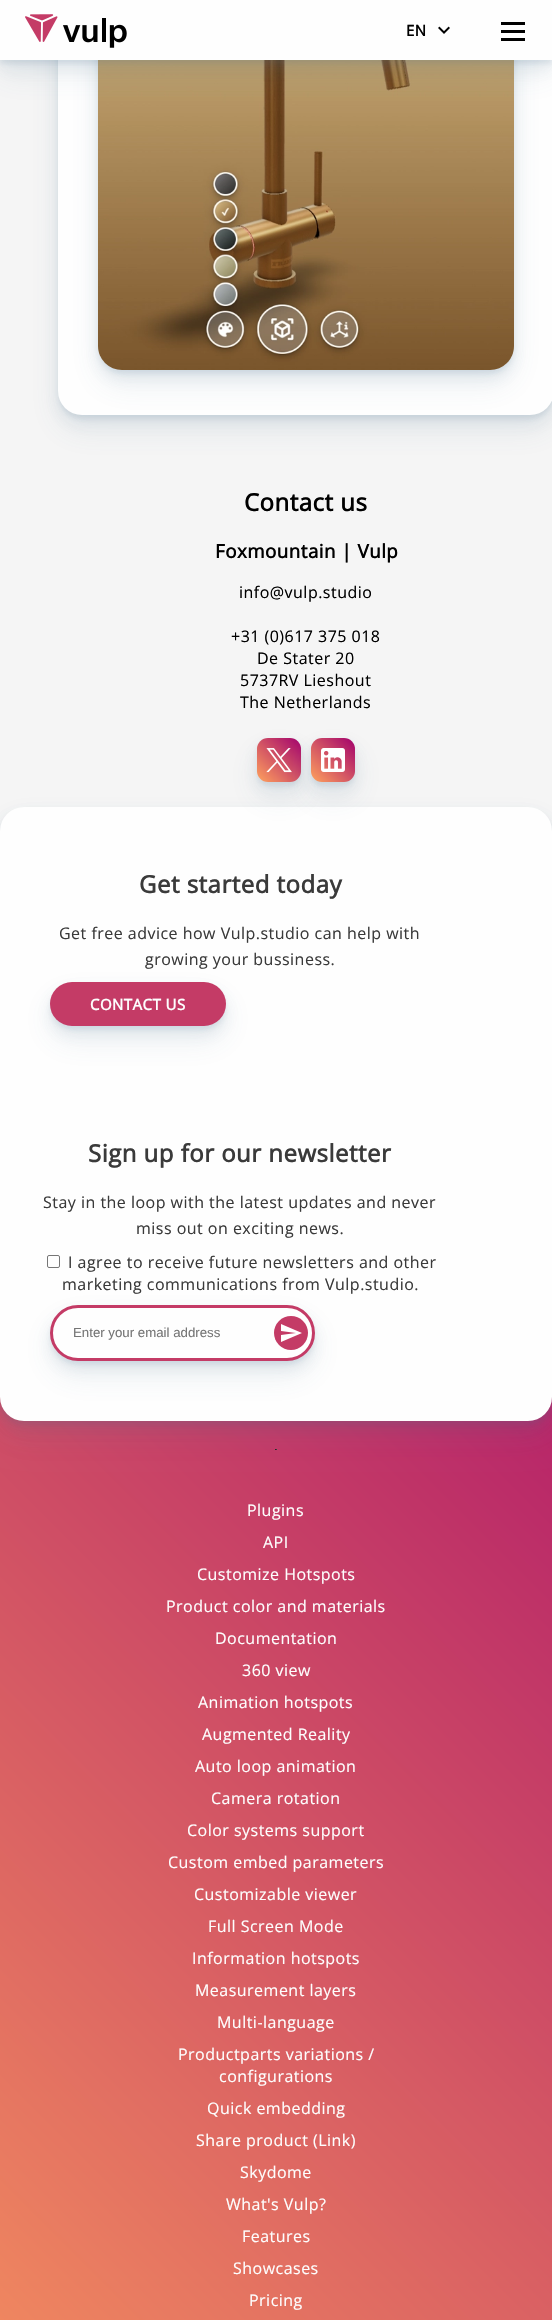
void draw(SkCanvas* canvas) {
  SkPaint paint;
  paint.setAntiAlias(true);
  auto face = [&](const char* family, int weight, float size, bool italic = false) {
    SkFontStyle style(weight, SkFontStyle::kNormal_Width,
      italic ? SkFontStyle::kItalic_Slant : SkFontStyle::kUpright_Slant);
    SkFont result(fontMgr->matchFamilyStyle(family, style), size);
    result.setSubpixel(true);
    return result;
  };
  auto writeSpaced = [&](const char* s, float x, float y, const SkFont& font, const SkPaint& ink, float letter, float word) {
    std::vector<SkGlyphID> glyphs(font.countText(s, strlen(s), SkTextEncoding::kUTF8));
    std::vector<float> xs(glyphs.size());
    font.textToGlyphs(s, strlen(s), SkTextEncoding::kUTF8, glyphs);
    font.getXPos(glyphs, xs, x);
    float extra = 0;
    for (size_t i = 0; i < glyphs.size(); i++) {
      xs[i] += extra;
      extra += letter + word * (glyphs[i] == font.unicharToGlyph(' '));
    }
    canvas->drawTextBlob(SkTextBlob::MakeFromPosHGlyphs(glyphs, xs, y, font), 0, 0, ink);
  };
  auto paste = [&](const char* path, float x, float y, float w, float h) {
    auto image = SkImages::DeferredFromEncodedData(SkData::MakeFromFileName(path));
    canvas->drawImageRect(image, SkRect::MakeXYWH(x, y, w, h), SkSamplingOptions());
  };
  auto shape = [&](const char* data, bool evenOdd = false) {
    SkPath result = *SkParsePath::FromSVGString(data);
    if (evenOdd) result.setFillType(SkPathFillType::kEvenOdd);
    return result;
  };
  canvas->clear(0xfff5f5f5);
  paint.setColor(0x1a476788);
  paint.setMaskFilter(SkMaskFilter::MakeBlur(kNormal_SkBlurStyle, 15));
  canvas->drawRoundRect(SkRect::MakeXYWH(58, -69, 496, 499), 24, 24, paint);
  paint.setMaskFilter(nullptr);
  paint.setMaskFilter(SkMaskFilter::MakeBlur(kNormal_SkBlurStyle, 7.5f));
  canvas->drawRoundRect(SkRect::MakeXYWH(58, -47, 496, 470), 24, 24, paint);
  paint.setMaskFilter(nullptr);
  paint.setMaskFilter(SkMaskFilter::MakeBlur(kNormal_SkBlurStyle, 2));
  canvas->drawRoundRect(SkRect::MakeXYWH(58, -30, 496, 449), 24, 24, paint);
  paint.setMaskFilter(nullptr);
  paint.setColor(0xfffefefe);
  canvas->drawRoundRect(SkRect::MakeXYWH(58, -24, 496, 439), 24, 24, paint);
  paint.setColor(0x1a476788);
  paint.setMaskFilter(SkMaskFilter::MakeBlur(kNormal_SkBlurStyle, 15));
  canvas->drawRoundRect(SkRect::MakeXYWH(98, -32, 416, 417), 24, 24, paint);
  paint.setMaskFilter(nullptr);
  paint.setMaskFilter(SkMaskFilter::MakeBlur(kNormal_SkBlurStyle, 7.5f));
  canvas->drawRoundRect(SkRect::MakeXYWH(98, -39, 416, 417), 24, 24, paint);
  paint.setMaskFilter(nullptr);
  paint.setMaskFilter(SkMaskFilter::MakeBlur(kNormal_SkBlurStyle, 2));
  canvas->drawRoundRect(SkRect::MakeXYWH(98, -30, 416, 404), 24, 24, paint);
  paint.setMaskFilter(nullptr);
  paste("img/3.png", 98, 60, 416, 310);
  paint.setMaskFilter(SkMaskFilter::MakeBlur(kNormal_SkBlurStyle, 15));
  canvas->drawRect(SkRect::MakeXYWH(0, 15, 552, 60), paint);
  paint.setMaskFilter(nullptr);
  paint.setMaskFilter(SkMaskFilter::MakeBlur(kNormal_SkBlurStyle, 7.5f));
  canvas->drawRect(SkRect::MakeXYWH(0, 8, 552, 60), paint);
  paint.setMaskFilter(nullptr);
  paint.setMaskFilter(SkMaskFilter::MakeBlur(kNormal_SkBlurStyle, 2));
  canvas->drawRect(SkRect::MakeXYWH(0, 4, 552, 60), paint);
  paint.setMaskFilter(nullptr);
  paint.setColor(0xfffefefe);
  canvas->drawRect(SkRect::MakeXYWH(0, 0, 552, 60), paint);
  paste("img/1.png", 25, 14, 102, 34);
  paste("img/2.png", 438, 26, 12, 8);
  {
    const struct { float x, y, w, h; SkColor color; } items[] = {
      {501, 22, 24, 3, 0xff000000},
      {501, 30, 24, 3, 0xff000000},
      {501, 38, 24, 3, 0xff000000},
    };
    for (auto [x, y, w, h, color] : items) {
      paint.setColor(color);
      canvas->drawRect(SkRect::MakeXYWH(x, y, w, h), paint);
    }
  }
  {
    const SkColor colors[] = {0xffffa25d, 0xffa2006c};
    const float stops[] = {0, 1};
    const SkPoint ends[] = {{-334, 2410}, {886, 1191}};
    paint.setShader(SkGradientShader::MakeLinear(ends, colors, stops, 2, SkTileMode::kClamp));
    paint.setAlpha(255);
  }
  canvas->drawRect(SkRect::MakeXYWH(0, 1397, 552, 923), paint);
  paint.setShader(nullptr);
  paint.setColor(0x1a476788);
  paint.setMaskFilter(SkMaskFilter::MakeBlur(kNormal_SkBlurStyle, 15));
  canvas->drawRoundRect(SkRect::MakeXYWH(0, 822, 552, 614), 24, 24, paint);
  paint.setMaskFilter(nullptr);
  paint.setMaskFilter(SkMaskFilter::MakeBlur(kNormal_SkBlurStyle, 7.5f));
  canvas->drawRoundRect(SkRect::MakeXYWH(0, 815, 552, 614), 24, 24, paint);
  paint.setMaskFilter(nullptr);
  paint.setMaskFilter(SkMaskFilter::MakeBlur(kNormal_SkBlurStyle, 2));
  canvas->drawRoundRect(SkRect::MakeXYWH(0, 811, 552, 614), 24, 24, paint);
  paint.setMaskFilter(nullptr);
  paint.setColor(0xfffefefe);
  canvas->drawRoundRect(SkRect::MakeXYWH(0, 807, 552, 614), 24, 24, paint);
  paint.setColor(0x1a476788);
  paint.setMaskFilter(SkMaskFilter::MakeBlur(kNormal_SkBlurStyle, 15));
  canvas->drawRoundRect(SkRect::MakeXYWH(257, 753, 44, 44), 11, 11, paint);
  paint.setMaskFilter(nullptr);
  paint.setMaskFilter(SkMaskFilter::MakeBlur(kNormal_SkBlurStyle, 7.5f));
  canvas->drawRoundRect(SkRect::MakeXYWH(257, 746, 44, 44), 11, 11, paint);
  paint.setMaskFilter(nullptr);
  paint.setMaskFilter(SkMaskFilter::MakeBlur(kNormal_SkBlurStyle, 2));
  canvas->drawRoundRect(SkRect::MakeXYWH(257, 742, 44, 44), 11, 11, paint);
  paint.setMaskFilter(nullptr);
  {
    const SkColor colors[] = {0xffffa25d, 0xffa2006c};
    const float stops[] = {0, 1};
    const SkPoint ends[] = {{257, 782}, {301, 738}};
    paint.setShader(SkGradientShader::MakeLinear(ends, colors, stops, 2, SkTileMode::kClamp));
    paint.setAlpha(255);
  }
  canvas->drawRoundRect(SkRect::MakeXYWH(257, 738, 44, 44), 11, 11, paint);
  paint.setShader(nullptr);
  paint.setColor(0x1a476788);
  paint.setMaskFilter(SkMaskFilter::MakeBlur(kNormal_SkBlurStyle, 15));
  canvas->drawRoundRect(SkRect::MakeXYWH(311, 753, 44, 44), 11, 11, paint);
  paint.setMaskFilter(nullptr);
  paint.setMaskFilter(SkMaskFilter::MakeBlur(kNormal_SkBlurStyle, 7.5f));
  canvas->drawRoundRect(SkRect::MakeXYWH(311, 746, 44, 44), 11, 11, paint);
  paint.setMaskFilter(nullptr);
  paste("img/4.png", 266, 748, 26, 25);
  paint.setMaskFilter(SkMaskFilter::MakeBlur(kNormal_SkBlurStyle, 2));
  canvas->drawRoundRect(SkRect::MakeXYWH(311, 742, 44, 44), 11, 11, paint);
  paint.setMaskFilter(nullptr);
  {
    const SkColor colors[] = {0xffffa25d, 0xffa2006c};
    const float stops[] = {0, 1};
    const SkPoint ends[] = {{311, 782}, {355, 738}};
    paint.setShader(SkGradientShader::MakeLinear(ends, colors, stops, 2, SkTileMode::kClamp));
    paint.setAlpha(255);
  }
  canvas->drawRoundRect(SkRect::MakeXYWH(311, 738, 44, 44), 11, 11, paint);
  paste("img/5.png", 321, 748, 24, 24);
  paint.setShader(nullptr);
  paint.setColor(0x1a476788);
  paint.setMaskFilter(SkMaskFilter::MakeBlur(kNormal_SkBlurStyle, 15));
  canvas->drawRoundRect(SkRect::MakeXYWH(50, 997, 176, 44), 22, 22, paint);
  paint.setMaskFilter(nullptr);
  paint.setMaskFilter(SkMaskFilter::MakeBlur(kNormal_SkBlurStyle, 7.5f));
  canvas->drawRoundRect(SkRect::MakeXYWH(50, 990, 176, 44), 22, 22, paint);
  paint.setMaskFilter(nullptr);
  paint.setMaskFilter(SkMaskFilter::MakeBlur(kNormal_SkBlurStyle, 2));
  canvas->drawRoundRect(SkRect::MakeXYWH(50, 986, 176, 44), 22, 22, paint);
  paint.setMaskFilter(nullptr);
  paint.setColor(0xffc43b66);
  canvas->drawRoundRect(SkRect::MakeXYWH(50, 982, 176, 44), 22, 22, paint);
  paint.setStroke(true);
  paint.setStrokeWidth(1);
  paint.setColor(0xff767676);
  canvas->drawRoundRect(SkRect::MakeXYWH(47.5f, 1255.5f, 12, 12), 1.5f, 1.5f, paint);
  paint.setStroke(false);
  paint.setColor(0x1a476788);
  paint.setMaskFilter(SkMaskFilter::MakeBlur(kNormal_SkBlurStyle, 15));
  canvas->drawRoundRect(SkRect::MakeXYWH(50, 1320, 265, 56), 28, 28, paint);
  paint.setMaskFilter(nullptr);
  paint.setMaskFilter(SkMaskFilter::MakeBlur(kNormal_SkBlurStyle, 7.5f));
  canvas->drawRoundRect(SkRect::MakeXYWH(50, 1313, 265, 56), 28, 28, paint);
  paint.setMaskFilter(nullptr);
  paint.setMaskFilter(SkMaskFilter::MakeBlur(kNormal_SkBlurStyle, 2));
  canvas->drawRoundRect(SkRect::MakeXYWH(50, 1309, 265, 56), 28, 28, paint);
  paint.setMaskFilter(nullptr);
  paint.setColor(0xfffefefe);
  canvas->drawRoundRect(SkRect::MakeXYWH(51.5f, 1306.5f, 262, 53), 26.5f, 26.5f, paint);
  paint.setStroke(true);
  paint.setStrokeWidth(3);
  paint.setColor(0xffc43b66);
  canvas->drawRoundRect(SkRect::MakeXYWH(51.5f, 1306.5f, 262, 53), 26.5f, 26.5f, paint);
  paint.setStroke(false);
  canvas->drawCircle(291, 1333, 17, paint);
  paint.setColor(0xffffffff);
  canvas->drawPath(shape("M281 1342L302 1333L281 1324V1331L296 1333L281 1335Z"), paint);
  paint.setColor(0xff272727);
  canvas->drawRect(SkRect::MakeXYWH(275, 1449, 2, 1), paint);
  paint.setColor(0xff3a3a3a);
  canvas->drawRect(SkRect::MakeXYWH(276, 1449, 1, 1), paint);
  auto f0 = face("Open Sans", 700, 15);
  paint.setColor(0xff000000);
  writeSpaced("EN", 406, 36, f0, paint, 0.48f, 0);
  auto f1 = face("Open Sans", 700, 24);
  writeSpaced("Contact us", 244, 511, f1, paint, 0.48f, 0);
  auto f2 = face("Open Sans", 700, 18.75f);
  writeSpaced("Foxmountain | Vulp", 215, 558, f2, paint, 0.48f, 0);
  auto f3 = face("Open Sans", 400, 16);
  {
    const struct { const char* s; float x, y; } items[] = {
      {"info@vulp.studio", 239, 598},
      {"+31 (0)617 375 018", 231, 642},
      {"De Stater 20", 257, 664},
      {"5737RV Lieshout", 240, 686},
      {"The Netherlands", 240, 708},
    };
    for (auto [s, x, y] : items) {
      writeSpaced(s, x, y, f3, paint, 0.48f, 0);
    }
  }
  paint.setColor(0xff3a3a3a);
  writeSpaced("Get started today", 139, 893, f1, paint, 0.48f, 0);
  writeSpaced("Get free advice how Vulp.studio can help with", 59, 939, f3, paint, 0.48f, 0);
  writeSpaced("growing your bussiness.", 145, 965, f3, paint, 0.48f, 0);
  paint.setColor(0xfffefefe);
  writeSpaced("CONTACT US", 90, 1010, f0, paint, 0.48f, 0);
  paint.setColor(0xff3a3a3a);
  writeSpaced("Sign up for our newsletter", 88, 1162, f1, paint, 0.48f, 0);
  {
    const struct { const char* s; float x, y; } items[] = {
      {"Stay in the loop with the latest updates and never", 43, 1208},
      {"miss out on exciting news.", 136, 1234},
      {"I agree to receive future newsletters and other", 68, 1268},
      {"marketing communications from Vulp.studio.", 62, 1290},
    };
    for (auto [s, x, y] : items) {
      writeSpaced(s, x, y, f3, paint, 0.48f, 0);
    }
  }
  auto f4 = face("Liberation Sans", 400, 13.25f);
  paint.setColor(0xff757575);
  canvas->drawString("Enter your email address", 73, 1337, f4, paint);
  paint.setColor(0xfffefefe);
  {
    const struct { const char* s; float x, y; } items[] = {
      {"Plugins", 247, 1516},
      {"API", 263, 1548},
      {"Customize Hotspots", 197, 1580},
      {"Product color and materials", 166, 1612},
      {"Documentation", 215, 1644},
      {"360 view", 242, 1676},
      {"Animation hotspots", 198, 1708},
      {"Augmented Reality", 202, 1740},
      {"Auto loop animation", 195, 1772},
      {"Camera rotation", 211, 1804},
      {"Color systems support", 187, 1836},
      {"Custom embed parameters", 168, 1868},
      {"Customizable viewer", 194, 1900},
      {"Full Screen Mode", 208, 1932},
      {"Information hotspots", 192, 1964},
      {"Measurement layers", 195, 1996},
      {"Multi-language", 217, 2028},
      {"Productparts variations /", 178, 2060},
      {"configurations", 219, 2082},
      {"Quick embedding", 207, 2114},
      {"Share product (Link)", 196, 2146},
      {"Skydome", 240, 2178},
      {"What's Vulp?", 226, 2210},
      {"Features", 242, 2242},
      {"Showcases", 233, 2274},
      {"Pricing", 249, 2306},
    };
    for (auto [s, x, y] : items) {
      writeSpaced(s, x, y, f3, paint, 0.48f, 0);
    }
  }
}
